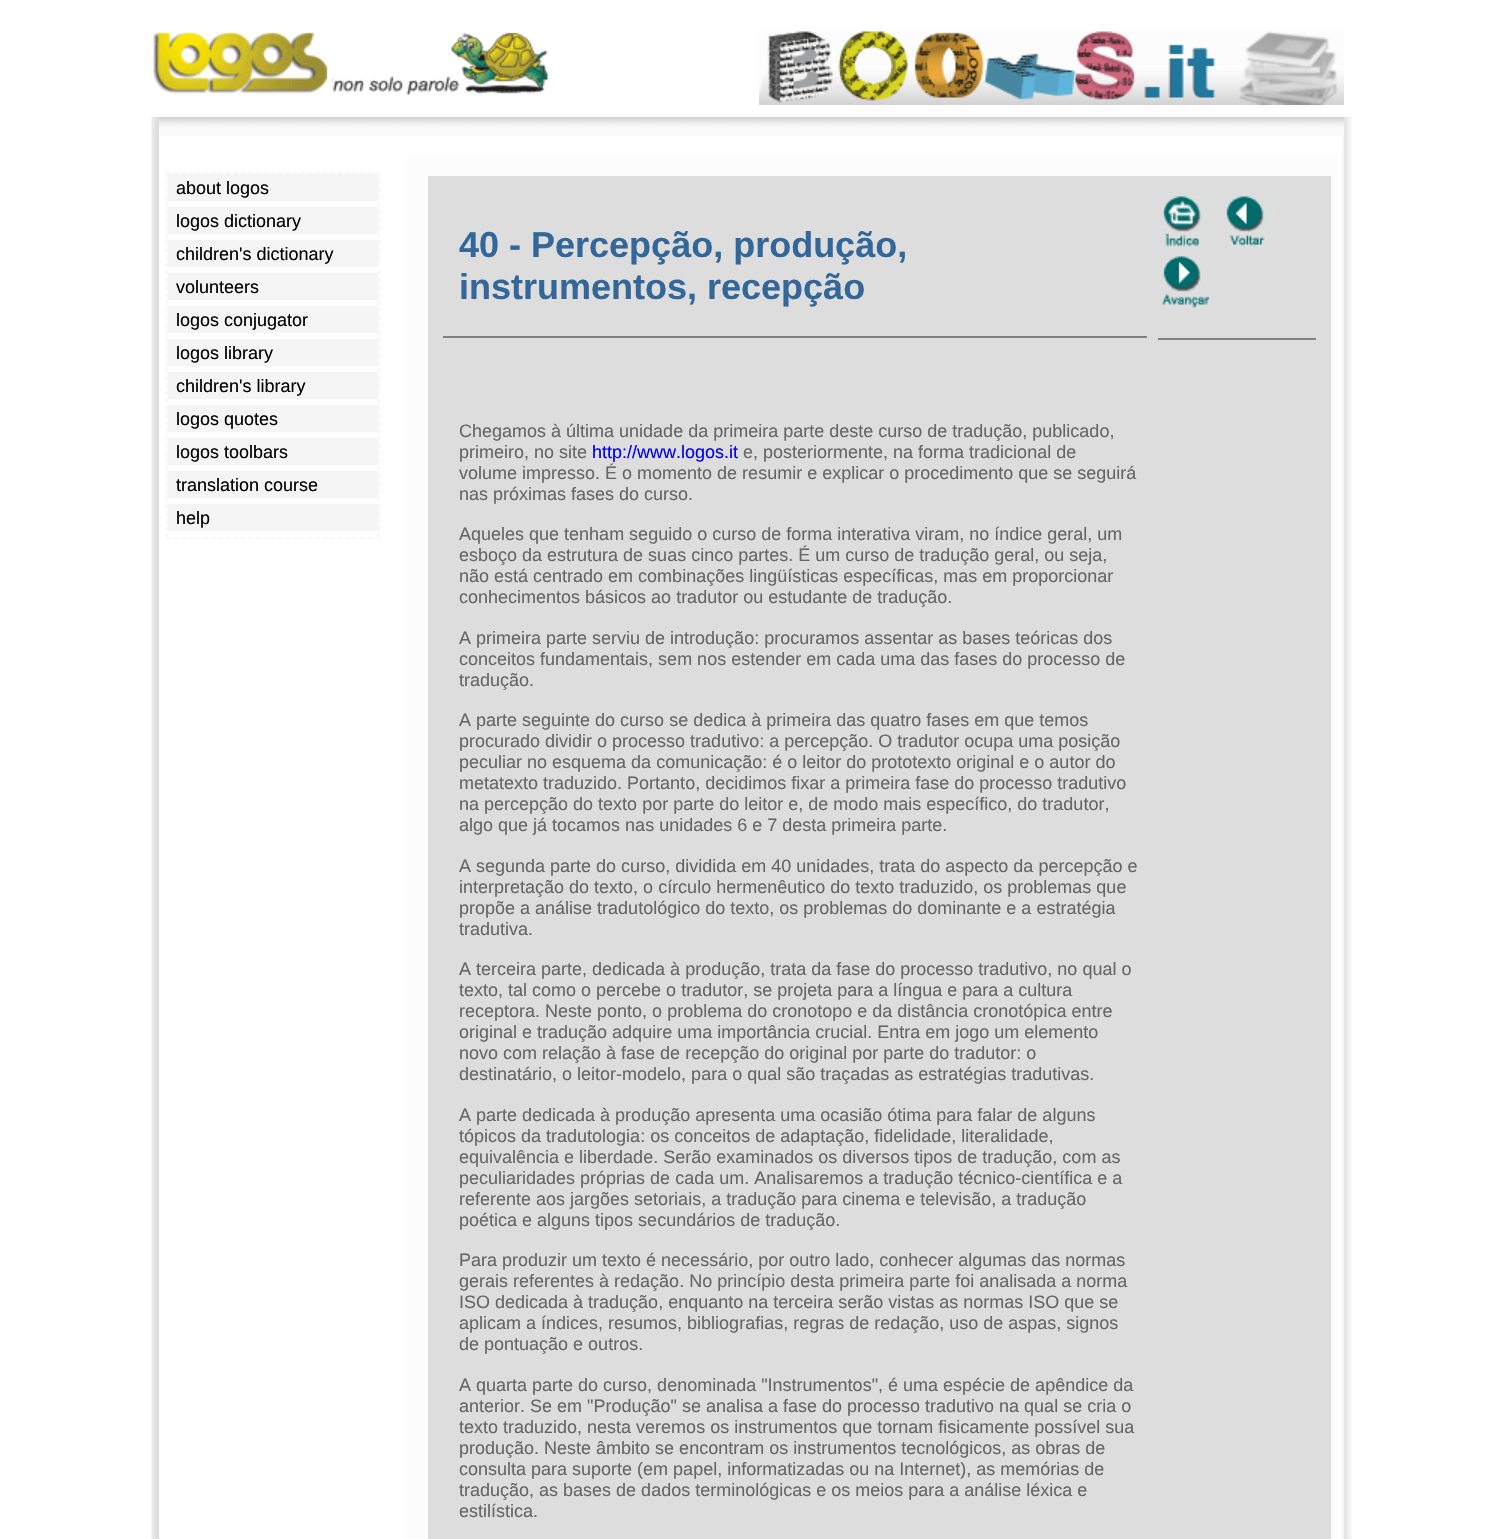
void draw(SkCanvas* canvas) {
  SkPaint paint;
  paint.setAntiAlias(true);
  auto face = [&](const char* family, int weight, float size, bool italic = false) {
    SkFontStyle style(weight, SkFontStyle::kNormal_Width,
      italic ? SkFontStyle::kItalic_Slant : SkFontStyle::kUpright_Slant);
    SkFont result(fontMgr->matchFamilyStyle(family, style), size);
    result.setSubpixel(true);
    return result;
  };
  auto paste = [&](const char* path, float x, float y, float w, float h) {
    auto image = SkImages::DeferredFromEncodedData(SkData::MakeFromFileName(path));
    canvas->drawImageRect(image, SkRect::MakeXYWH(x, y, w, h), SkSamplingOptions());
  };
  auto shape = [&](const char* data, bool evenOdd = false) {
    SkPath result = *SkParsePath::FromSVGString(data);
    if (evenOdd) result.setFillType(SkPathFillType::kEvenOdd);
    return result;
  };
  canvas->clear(0xffffffff);
  paste("img/1.png", 152, 32, 396, 63);
  paste("img/2.png", 759, 31, 585, 74);
  paste("img/3.png", 151, 117, 1201, 1422);
  paste("img/4.png", 159, 117, 1185, 19);
  paint.setStroke(true);
  paint.setStrokeWidth(1.5f);
  paint.setColor(0xfff5f5f5);
  paint.setPathEffect(SkDashPathEffect::Make({{4.5f, 2.94f}}, 0));
  canvas->drawPath(shape("M166.5 173H379.5"), paint);
  paint.setPathEffect(nullptr);
  paint.setPathEffect(SkDashPathEffect::Make({{4.5f, 3.03f}}, 0));
  canvas->drawPath(shape("M379 172.5V538.5"), paint);
  paint.setPathEffect(nullptr);
  paint.setPathEffect(SkDashPathEffect::Make({{4.5f, 2.94f}}, 0));
  canvas->drawPath(shape("M166.5 538H379.5"), paint);
  paint.setPathEffect(nullptr);
  paint.setPathEffect(SkDashPathEffect::Make({{4.5f, 3.03f}}, 0));
  canvas->drawPath(shape("M167 172.5V538.5"), paint);
  paint.setPathEffect(nullptr);
  paint.setStroke(false);
  {
    const struct { float x, y, w, h; SkColor color; } items[] = {
      {168, 174, 210, 27, 0xfff5f5f5},
      {168, 207, 210, 27, 0xfff5f5f5},
      {168, 240, 210, 27, 0xfff5f5f5},
      {168, 273, 210, 27, 0xfff5f5f5},
      {168, 306, 210, 27, 0xfff5f5f5},
      {168, 339, 210, 27, 0xfff5f5f5},
      {168, 372, 210, 27, 0xfff5f5f5},
      {168, 405, 210, 27, 0xfff5f5f5},
      {168, 438, 210, 27, 0xfff5f5f5},
      {168, 471, 210, 27, 0xfff5f5f5},
      {168, 504, 210, 27, 0xfff5f5f5},
      {407, 155, 930, 1384, 0xfffcfcfc},
      {428, 176, 903, 1363, 0xffdddddd},
    };
    for (auto [x, y, w, h, color] : items) {
      paint.setColor(color);
      canvas->drawRect(SkRect::MakeXYWH(x, y, w, h), paint);
    }
  }
  paste("img/5.png", 1163, 194, 52, 55);
  paste("img/6.png", 1226, 194, 52, 55);
  paste("img/7.png", 1162, 256, 48, 52);
  paint.setColor(0xff808080);
  canvas->drawRect(SkRect::MakeXYWH(1158, 338, 158, 2), paint);
  canvas->drawRect(SkRect::MakeXYWH(443, 336, 704, 2), paint);
  auto f0 = face("Liberation Sans", 400, 18);
  paint.setColor(0xff000000);
  {
    const struct { const char* s; float x, y; } items[] = {
      {"about logos", 176, 194},
      {"logos dictionary", 176, 227},
      {"children's dictionary", 176, 260},
      {"volunteers", 176, 293},
      {"logos conjugator", 176, 326},
      {"logos library", 176, 359},
      {"children's library", 176, 392},
      {"logos quotes", 176, 425},
      {"logos toolbars", 176, 458},
      {"translation course", 176, 491},
      {"help", 176, 524},
    };
    for (auto [s, x, y] : items) {
      canvas->drawString(s, x, y, f0, paint);
    }
  }
  auto f1 = face("Liberation Sans", 700, 36);
  paint.setColor(0xff336699);
  canvas->drawString("40 - Percepção, produção,", 459, 257, f1, paint);
  canvas->drawString("instrumentos, recepção", 459, 299, f1, paint);
  paint.setColor(0xff666666);
  canvas->drawString("Chegamos à última unidade da primeira parte deste curso de tradução, publicado,", 459, 437, f0, paint);
  canvas->drawString("primeiro, no site", 459, 458, f0, paint);
  paint.setColor(0xff0000ee);
  canvas->drawString("http://www.logos.it", 592, 458, f0, paint);
  paint.setColor(0xff666666);
  {
    const struct { const char* s; float x, y; } items[] = {
      {"e, posteriormente, na forma tradicional de", 743, 458},
      {"volume impresso. É o momento de resumir e explicar o procedimento que se seguirá", 459, 479},
      {"nas próximas fases do curso.", 459, 500},
      {"Aqueles que tenham seguido o curso de forma interativa viram, no índice geral, um", 459, 540},
      {"esboço da estrutura de suas cinco partes. É um curso de tradução geral, ou seja,", 459, 561},
      {"não está centrado em combinações lingüísticas específicas, mas em proporcionar", 459, 582},
      {"conhecimentos básicos ao tradutor ou estudante de tradução.", 459, 603},
      {"A primeira parte serviu de introdução: procuramos assentar as bases teóricas dos", 459, 644},
      {"conceitos fundamentais, sem nos estender em cada uma das fases do processo de", 459, 665},
      {"tradução.", 459, 686},
      {"A parte seguinte do curso se dedica à primeira das quatro fases em que temos", 459, 726},
      {"procurado dividir o processo tradutivo: a percepção. O tradutor ocupa uma posição", 459, 747},
      {"peculiar no esquema da comunicação: é o leitor do prototexto original e o autor do", 459, 768},
      {"metatexto traduzido. Portanto, decidimos fixar a primeira fase do processo tradutivo", 459, 789},
      {"na percepção do texto por parte do leitor e, de modo mais específico, do tradutor,", 459, 810},
      {"algo que já tocamos nas unidades 6 e 7 desta primeira parte.", 459, 831},
      {"A segunda parte do curso, dividida em 40 unidades, trata do aspecto da percepção e", 459, 872},
      {"interpretação do texto, o círculo hermenêutico do texto traduzido, os problemas que", 459, 893},
      {"propõe a análise tradutológico do texto, os problemas do dominante e a estratégia", 459, 914},
      {"tradutiva.", 459, 935},
      {"A terceira parte, dedicada à produção, trata da fase do processo tradutivo, no qual o", 459, 975},
      {"texto, tal como o percebe o tradutor, se projeta para a língua e para a cultura", 459, 996},
      {"receptora. Neste ponto, o problema do cronotopo e da distância cronotópica entre", 459, 1017},
      {"original e tradução adquire uma importância crucial. Entra em jogo um elemento", 459, 1038},
      {"novo com relação à fase de recepção do original por parte do tradutor: o", 459, 1059},
      {"destinatário, o leitor-modelo, para o qual são traçadas as estratégias tradutivas.", 459, 1080},
      {"A parte dedicada à produção apresenta uma ocasião ótima para falar de alguns", 459, 1121},
      {"tópicos da tradutologia: os conceitos de adaptação, fidelidade, literalidade,", 459, 1142},
      {"equivalência e liberdade. Serão examinados os diversos tipos de tradução, com as", 459, 1163},
      {"peculiaridades próprias de cada um. Analisaremos a tradução técnico-científica e a", 459, 1184},
      {"referente aos jargões setoriais, a tradução para cinema e televisão, a tradução", 459, 1205},
      {"poética e alguns tipos secundários de tradução.", 459, 1226},
      {"Para produzir um texto é necessário, por outro lado, conhecer algumas das normas", 459, 1266},
      {"gerais referentes à redação. No princípio desta primeira parte foi analisada a norma", 459, 1287},
      {"ISO dedicada à tradução, enquanto na terceira serão vistas as normas ISO que se", 459, 1308},
      {"aplicam a índices, resumos, bibliografias, regras de redação, uso de aspas, signos", 459, 1329},
      {"de pontuação e outros.", 459, 1350},
      {"A quarta parte do curso, denominada \"Instrumentos\", é uma espécie de apêndice da", 459, 1391},
      {"anterior. Se em \"Produção\" se analisa a fase do processo tradutivo na qual se cria o", 459, 1412},
      {"texto traduzido, nesta veremos os instrumentos que tornam fisicamente possível sua", 459, 1433},
      {"produção. Neste âmbito se encontram os instrumentos tecnológicos, as obras de", 459, 1454},
      {"consulta para suporte (em papel, informatizadas ou na Internet), as memórias de", 459, 1475},
      {"tradução, as bases de dados terminológicas e os meios para a análise léxica e", 459, 1496},
      {"estilística.", 459, 1517},
    };
    for (auto [s, x, y] : items) {
      canvas->drawString(s, x, y, f0, paint);
    }
  }
}
